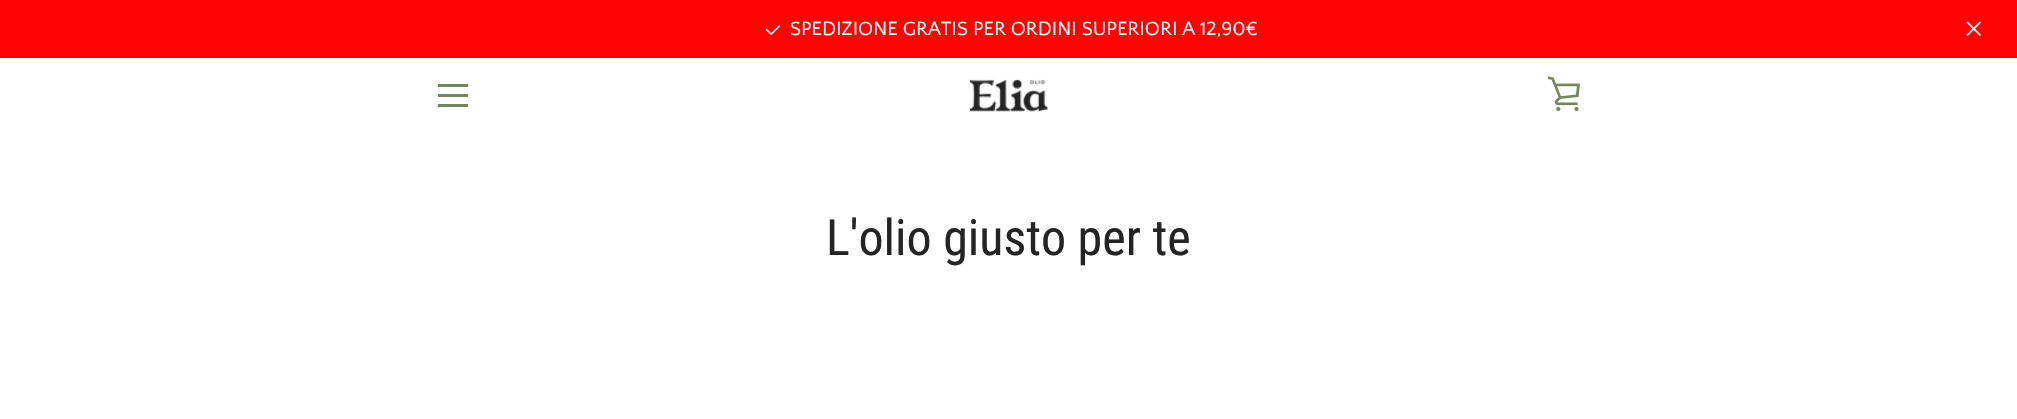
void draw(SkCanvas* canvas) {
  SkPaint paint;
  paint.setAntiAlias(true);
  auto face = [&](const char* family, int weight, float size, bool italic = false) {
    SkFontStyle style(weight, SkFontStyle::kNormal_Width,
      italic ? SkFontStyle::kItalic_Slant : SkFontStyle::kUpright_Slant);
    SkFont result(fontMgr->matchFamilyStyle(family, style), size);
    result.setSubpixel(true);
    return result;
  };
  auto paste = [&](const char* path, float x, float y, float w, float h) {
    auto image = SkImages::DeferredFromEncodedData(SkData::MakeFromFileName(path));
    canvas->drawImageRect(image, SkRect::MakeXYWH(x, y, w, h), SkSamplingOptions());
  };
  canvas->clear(0xffffffff);
  paint.setColor(0xffff0202);
  canvas->drawRect(SkRect::MakeXYWH(0, 0, 2017, 58), paint);
  paste("img/1.png", 765, 25, 16, 11);
  paste("img/2.png", 1966, 21, 15, 15);
  {
    const struct { float x, y, w, h; SkColor color; } items[] = {
      {438, 84, 30, 3, 0xff758560},
      {438, 94, 30, 3, 0xff758560},
      {438, 104, 30, 3, 0xff758560},
    };
    for (auto [x, y, w, h, color] : items) {
      paint.setColor(color);
      canvas->drawRect(SkRect::MakeXYWH(x, y, w, h), paint);
    }
  }
  paste("img/3.png", 970, 79, 78, 33);
  paste("img/4.png", 1548, 76, 32, 36);
  auto f0 = face("Quattrocento Sans", 400, 20);
  paint.setColor(0xffffffff);
  canvas->drawString("SPEDIZIONE GRATIS PER ORDINI SUPERIORI A 12,90€", 790, 35, f0, paint);
  auto f1 = face("Roboto Condensed", 400, 50);
  paint.setColor(0xff242424);
  canvas->drawString("L'olio giusto per te", 826, 255, f1, paint);
}
